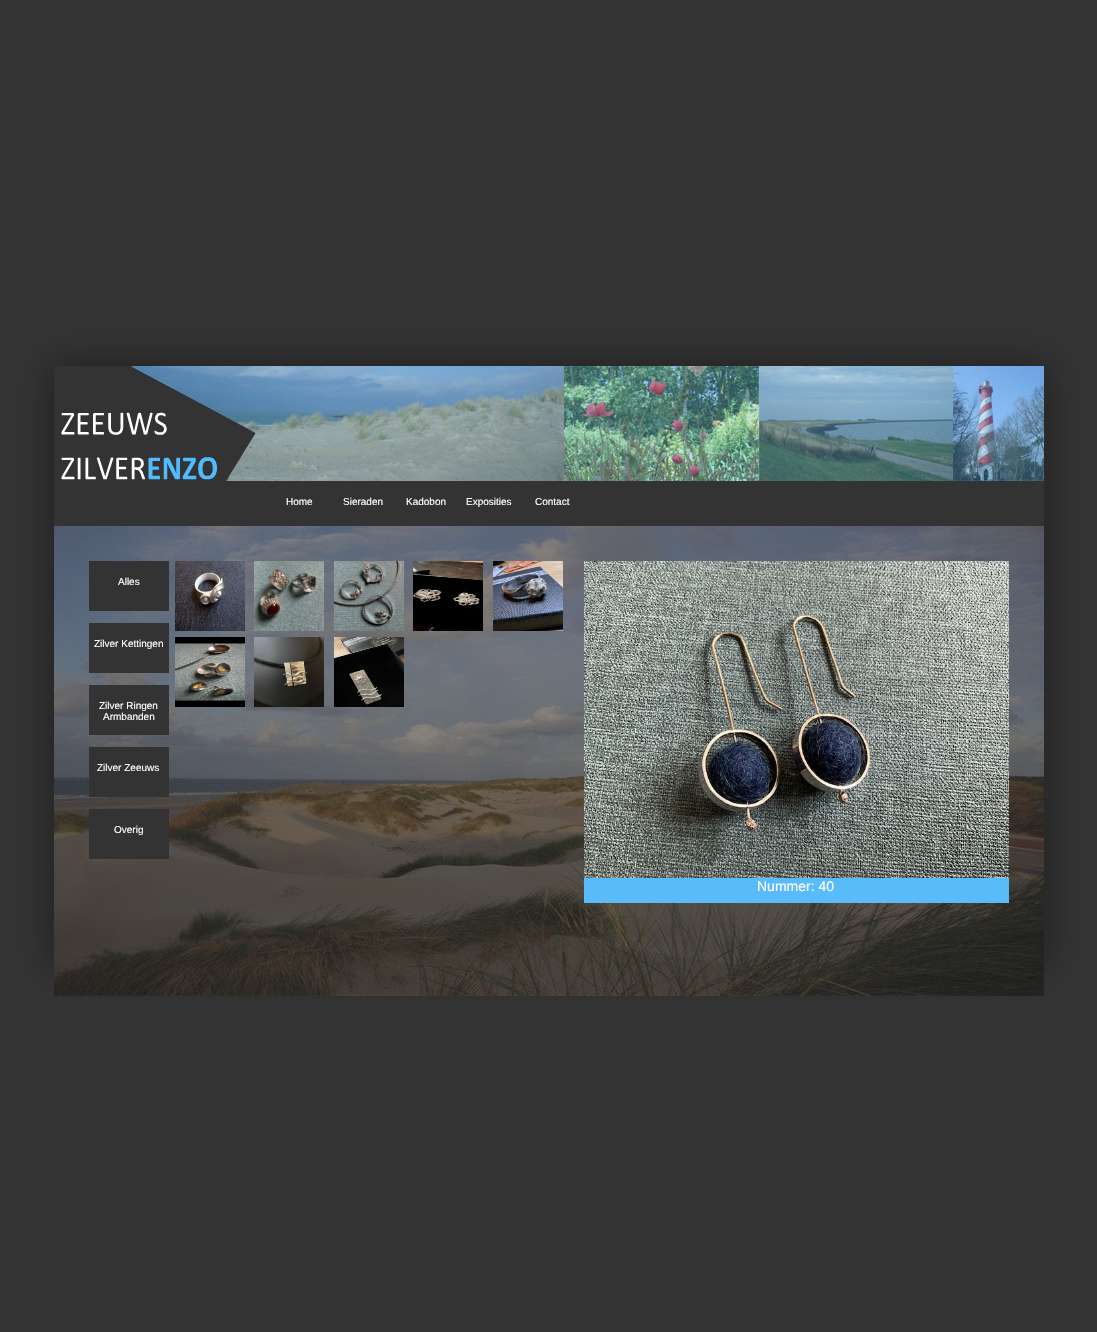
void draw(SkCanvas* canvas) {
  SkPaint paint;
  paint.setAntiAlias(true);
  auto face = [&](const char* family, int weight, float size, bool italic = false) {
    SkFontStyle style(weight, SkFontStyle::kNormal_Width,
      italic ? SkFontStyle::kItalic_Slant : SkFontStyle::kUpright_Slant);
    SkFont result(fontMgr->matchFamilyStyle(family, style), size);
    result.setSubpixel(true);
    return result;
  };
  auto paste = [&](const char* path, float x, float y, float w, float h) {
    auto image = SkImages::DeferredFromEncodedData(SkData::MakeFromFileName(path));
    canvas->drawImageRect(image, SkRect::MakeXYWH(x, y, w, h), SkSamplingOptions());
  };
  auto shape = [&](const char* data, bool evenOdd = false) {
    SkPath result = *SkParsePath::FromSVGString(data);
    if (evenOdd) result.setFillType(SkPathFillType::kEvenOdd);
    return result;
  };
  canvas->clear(0xff333333);
  canvas->save();
  canvas->clipPath(shape("M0 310H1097V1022H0ZM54 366H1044V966H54Z", true), true);
  paint.setColor(0xff1f1f1f);
  paint.setMaskFilter(SkMaskFilter::MakeBlur(kNormal_SkBlurStyle, 17.5f));
  canvas->drawRect(SkRect::MakeXYWH(52, 364, 994, 604), paint);
  paint.setMaskFilter(nullptr);
  canvas->restore();
  paste("img/1.png", 54, 366, 990, 115);
  paste("img/2.png", 54, 526, 990, 470);
  {
    const struct { float x, y, w, h; SkColor color; } items[] = {
      {89, 561, 80, 50, 0xff333333},
      {89, 623, 80, 50, 0xff333333},
      {89, 685, 80, 50, 0xff333333},
      {89, 747, 80, 50, 0xff333333},
      {89, 809, 80, 50, 0xff333333},
    };
    for (auto [x, y, w, h, color] : items) {
      paint.setColor(color);
      canvas->drawRect(SkRect::MakeXYWH(x, y, w, h), paint);
    }
  }
  paste("img/3.png", 175, 561, 70, 70);
  paste("img/4.png", 254, 561, 70, 70);
  paste("img/5.png", 334, 561, 70, 70);
  paste("img/6.png", 413, 561, 70, 70);
  paste("img/7.png", 493, 561, 70, 70);
  paste("img/8.png", 175, 637, 70, 70);
  paste("img/9.png", 254, 637, 70, 70);
  paste("img/10.png", 334, 637, 70, 70);
  paste("img/11.png", 584, 561, 425, 317);
  paint.setColor(0xff5abbfa);
  canvas->drawRect(SkRect::MakeXYWH(584, 878, 425, 25), paint);
  auto f0 = face("Liberation Sans", 400, 10);
  paint.setColor(0xffffffff);
  {
    const struct { const char* s; float x, y; } items[] = {
      {"Home", 286, 505},
      {"Sieraden", 343, 505},
      {"Kadobon", 406, 505},
      {"Exposities", 466, 505},
      {"Contact", 535, 505},
      {"Alles", 118, 585},
      {"Zilver Kettingen", 94, 647},
      {"Zilver Ringen", 99, 709},
      {"Armbanden", 103, 720},
      {"Zilver Zeeuws", 97, 771},
      {"Overig", 114, 833},
    };
    for (auto [s, x, y] : items) {
      canvas->drawString(s, x, y, f0, paint);
    }
  }
  auto f1 = face("Liberation Sans", 400, 14);
  canvas->drawString("Nummer: 40", 757, 891, f1, paint);
}
